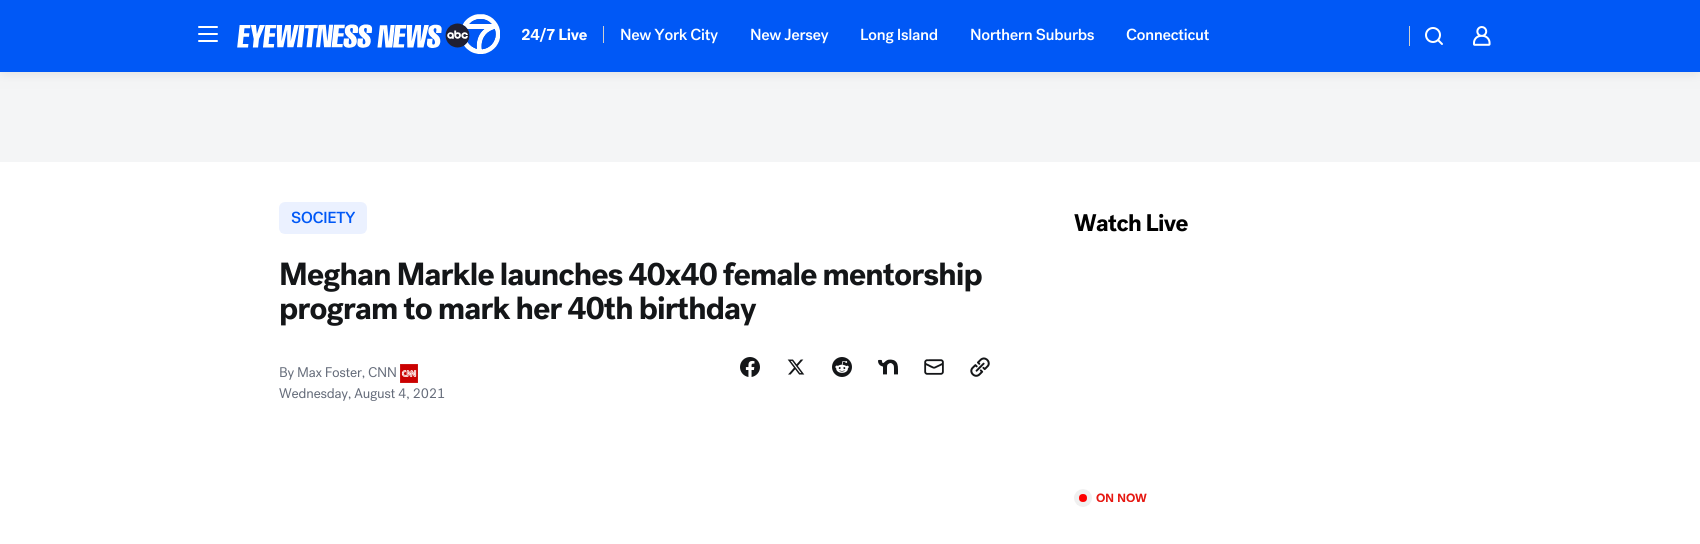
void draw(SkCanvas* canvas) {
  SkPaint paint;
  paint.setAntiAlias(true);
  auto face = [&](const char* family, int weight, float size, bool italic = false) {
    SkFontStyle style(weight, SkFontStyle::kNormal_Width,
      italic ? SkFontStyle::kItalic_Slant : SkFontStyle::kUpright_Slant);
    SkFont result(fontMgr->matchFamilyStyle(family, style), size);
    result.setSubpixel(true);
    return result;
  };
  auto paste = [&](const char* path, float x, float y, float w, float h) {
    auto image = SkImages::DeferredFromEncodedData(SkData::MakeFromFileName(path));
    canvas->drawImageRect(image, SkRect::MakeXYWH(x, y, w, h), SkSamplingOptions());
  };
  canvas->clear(0xffffffff);
  paint.setColor(0xfff4f5f6);
  canvas->drawRect(SkRect::MakeXYWH(0, 72, 1700, 90), paint);
  paint.setColor(0x14000000);
  paint.setMaskFilter(SkMaskFilter::MakeBlur(kNormal_SkBlurStyle, 5));
  canvas->drawRect(SkRect::MakeXYWH(0, 2, 1700, 72), paint);
  paint.setMaskFilter(nullptr);
  paint.setColor(0xff0058f6);
  canvas->drawRect(SkRect::MakeXYWH(0, 0, 1700, 72), paint);
  paint.setColor(0xffffffff);
  canvas->drawRoundRect(SkRect::MakeXYWH(198, 33, 20, 2), 1, 1, paint);
  canvas->drawRoundRect(SkRect::MakeXYWH(198, 26, 20, 2), 1, 1, paint);
  canvas->drawRoundRect(SkRect::MakeXYWH(198, 40, 20, 2), 1, 1, paint);
  paste("img/1.png", 237, 14, 263, 40);
  paste("img/2.png", 521, 27, 66, 15);
  paint.setColor(0xffcecfcf);
  canvas->drawRect(SkRect::MakeXYWH(603, 26, 1, 17), paint);
  paste("img/3.png", 621, 28, 97, 16);
  paste("img/4.png", 751, 28, 78, 16);
  paste("img/5.png", 861, 28, 77, 16);
  paste("img/6.png", 971, 28, 123, 13);
  paste("img/7.png", 1126, 28, 83, 13);
  canvas->drawRect(SkRect::MakeXYWH(1409, 26, 1, 20), paint);
  paste("img/8.png", 1425, 27, 18, 18);
  paste("img/9.png", 1473, 26, 18, 20);
  paint.setColor(0xffebf1ff);
  canvas->drawRoundRect(SkRect::MakeXYWH(279, 202, 88, 32), 6, 6, paint);
  paste("img/10.png", 291, 211, 64, 13);
  paste("img/11.png", 281, 262, 701, 30);
  paste("img/12.png", 281, 296, 476, 30);
  paste("img/13.png", 280, 367, 14, 13);
  paste("img/14.png", 298, 367, 98, 12);
  paste("img/15.png", 400, 364, 18, 19);
  paste("img/16.png", 279, 388, 166, 13);
  paste("img/17.png", 740, 357, 20, 20);
  paste("img/18.png", 787, 359, 18, 16);
  paste("img/19.png", 832, 357, 20, 20);
  paste("img/20.png", 878, 359, 20, 16);
  paste("img/21.png", 924, 359, 20, 16);
  paste("img/22.png", 970, 357, 20, 20);
  paste("img/23.png", 1074, 213, 114, 19);
  paint.setColor(0xfff0f0f0);
  canvas->drawCircle(1083, 498, 9, paint);
  paint.setColor(0xfffe0000);
  canvas->drawCircle(1083, 498, 4, paint);
  auto f0 = face("Liberation Sans", 700, 12);
  paint.setColor(0xffe61812);
  canvas->drawString("ON NOW", 1096, 502, f0, paint);
}
